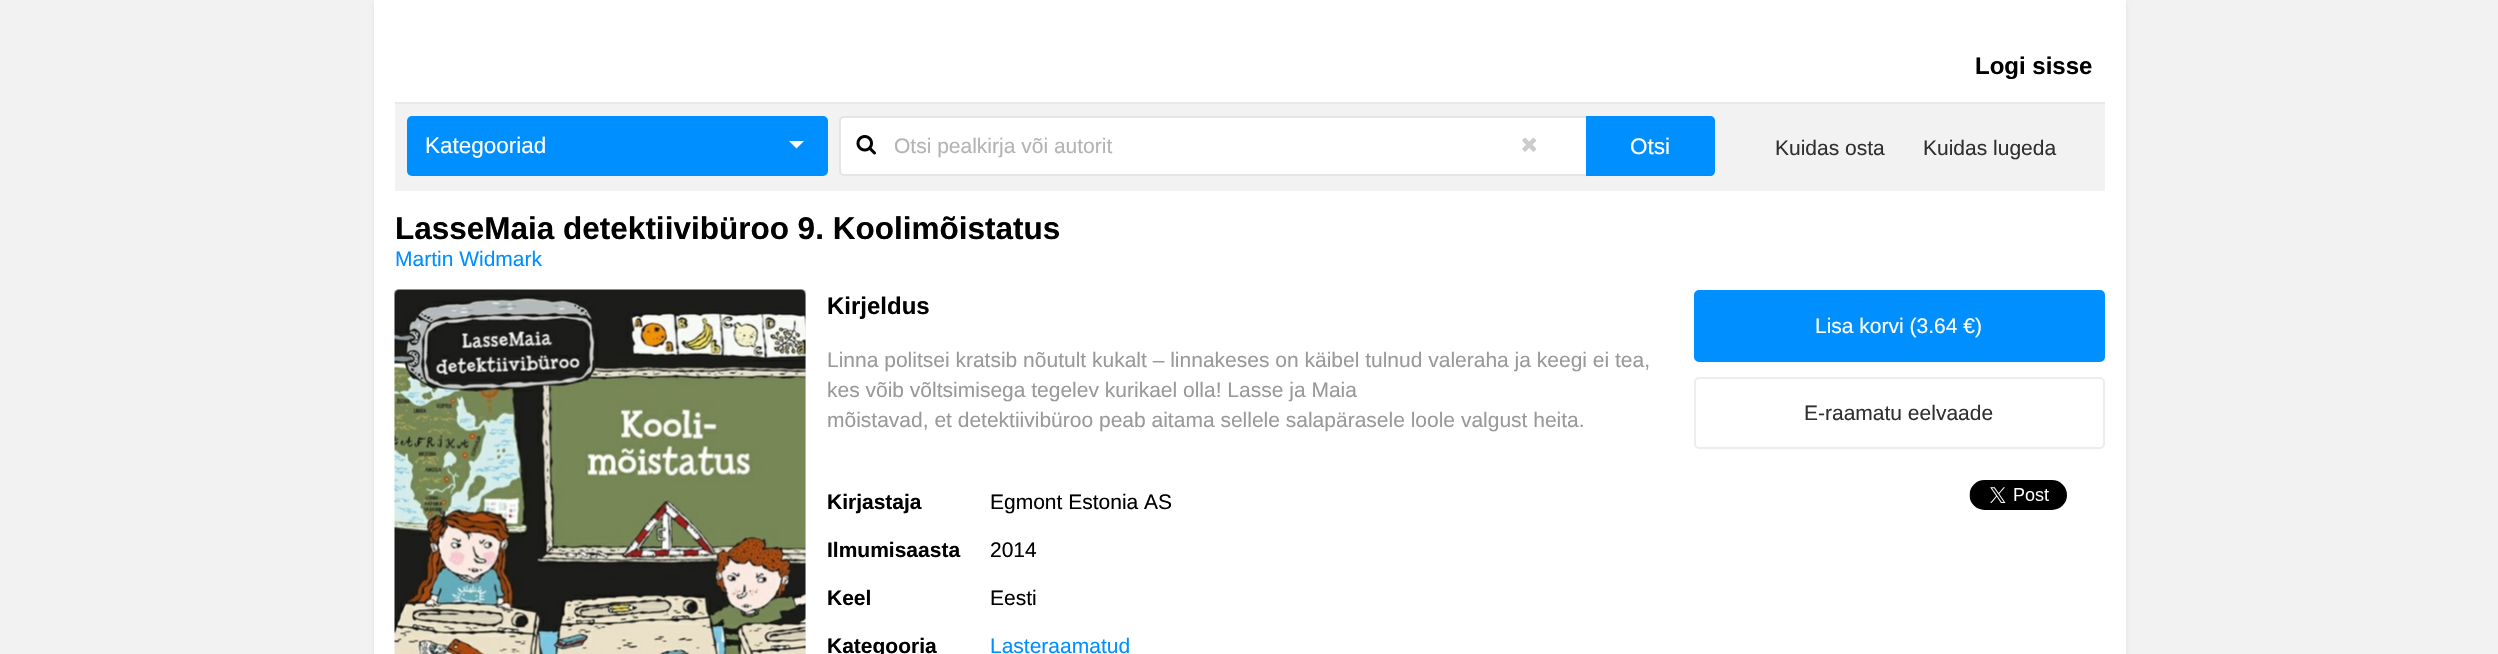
void draw(SkCanvas* canvas) {
  SkPaint paint;
  paint.setAntiAlias(true);
  auto face = [&](const char* family, int weight, float size, bool italic = false) {
    SkFontStyle style(weight, SkFontStyle::kNormal_Width,
      italic ? SkFontStyle::kItalic_Slant : SkFontStyle::kUpright_Slant);
    SkFont result(fontMgr->matchFamilyStyle(family, style), size);
    result.setSubpixel(true);
    return result;
  };
  auto paste = [&](const char* path, float x, float y, float w, float h) {
    auto image = SkImages::DeferredFromEncodedData(SkData::MakeFromFileName(path));
    canvas->drawImageRect(image, SkRect::MakeXYWH(x, y, w, h), SkSamplingOptions());
  };
  auto shape = [&](const char* data, bool evenOdd = false) {
    SkPath result = *SkParsePath::FromSVGString(data);
    if (evenOdd) result.setFillType(SkPathFillType::kEvenOdd);
    return result;
  };
  canvas->clear(0xfff2f2f2);
  paint.setColor(0x12000000);
  paint.setMaskFilter(SkMaskFilter::MakeBlur(kNormal_SkBlurStyle, 2));
  canvas->drawRect(SkRect::MakeXYWH(374, 2, 1752, 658), paint);
  paint.setMaskFilter(nullptr);
  {
    const struct { float x, y, w, h; SkColor color; } items[] = {
      {374, 0, 1752, 654, 0xffffffff},
      {395, 104, 1710, 87, 0xfff2f2f2},
      {395, 102, 1710, 2, 0xffe8e8e8},
    };
    for (auto [x, y, w, h, color] : items) {
      paint.setColor(color);
      canvas->drawRect(SkRect::MakeXYWH(x, y, w, h), paint);
    }
  }
  paint.setColor(0xff008fff);
  canvas->drawRoundRect(SkRect::MakeXYWH(407, 116, 421, 60), 5, 5, paint);
  paint.setColor(0xffffffff);
  canvas->drawPath(shape("M789 141H804L796.5 148.5Z"), paint);
  canvas->drawRoundRect(SkRect::MakeXYWH(839, 116, 876, 60), 5, 5, paint);
  paint.setStroke(true);
  paint.setStrokeWidth(2);
  paint.setColor(0x1a000000);
  canvas->drawRoundRect(SkRect::MakeXYWH(840, 117, 874, 58), 4, 4, paint);
  paste("img/1.png", 856, 135, 20, 20);
  paste("img/2.png", 1522, 137, 15, 15);
  paint.setStroke(false);
  paint.setColor(0xff008fff);
  canvas->drawPath(shape("M1586 116H1710C1713 116 1715 118 1715 121V171C1715 174 1713 176 1710 176H1586Z"), paint);
  paint.setColor(0xffe6e6e6);
  canvas->drawPath(shape("M395 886C395 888 397 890 400 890H801C804 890 806 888 806 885V296L805 294L806 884C806 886 803 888 801 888H399C397 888 396 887 395 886Z"), paint);
  paste("img/3.png", 394, 289, 412, 365);
  paint.setColor(0xff008fff);
  canvas->drawRoundRect(SkRect::MakeXYWH(1695, 291, 409, 70), 4, 4, paint);
  paint.setStroke(true);
  canvas->drawRoundRect(SkRect::MakeXYWH(1695, 291, 409, 70), 4, 4, paint);
  paint.setColor(0xffededed);
  canvas->drawRoundRect(SkRect::MakeXYWH(1695, 378, 409, 70), 4, 4, paint);
  paste("img/4.png", 1969, 480, 98, 30);
  auto f0 = face("Liberation Sans", 700, 24);
  paint.setStroke(false);
  paint.setColor(0xff000000);
  canvas->drawString("Logi sisse", 1975, 74, f0, paint);
  auto f1 = face("Liberation Sans", 400, 22.5f);
  paint.setColor(0xffffffff);
  canvas->drawString("Kategooriad", 425, 153, f1, paint);
  auto f2 = face("Liberation Sans", 400, 21);
  paint.setColor(0xffb3b3b3);
  canvas->drawString("Otsi pealkirja või autorit", 894, 153, f2, paint);
  paint.setColor(0xffffffff);
  canvas->drawString("Otsi", 1630, 154, f1, paint);
  paint.setColor(0xff303030);
  canvas->drawString("Kuidas osta", 1775, 155, f2, paint);
  canvas->drawString("Kuidas lugeda", 1923, 155, f2, paint);
  auto f3 = face("Liberation Sans", 700, 31.5f);
  paint.setColor(0xff000000);
  canvas->drawString("LasseMaia detektiivibüroo 9. Koolimõistatus", 395, 239, f3, paint);
  paint.setColor(0xff008fff);
  canvas->drawString("Martin Widmark", 395, 266, f2, paint);
  paint.setColor(0xff000000);
  canvas->drawString("Kirjeldus", 827, 314, f0, paint);
  paint.setColor(0xff999999);
  {
    const struct { const char* s; float x, y; } items[] = {
      {"Linna politsei kratsib nõutult kukalt – linnakeses on käibel tulnud valeraha ja keegi ei tea,", 827, 367},
      {"kes võib võltsimisega tegelev kurikael olla! Lasse ja Maia", 827, 397},
      {"mõistavad, et detektiivibüroo peab aitama sellele salapärasele loole valgust heita.", 827, 427},
    };
    for (auto [s, x, y] : items) {
      canvas->drawString(s, x, y, f2, paint);
    }
  }
  auto f4 = face("Liberation Sans", 700, 21);
  paint.setColor(0xff000000);
  canvas->drawString("Kirjastaja", 827, 509, f4, paint);
  canvas->drawString("Egmont Estonia AS", 990, 509, f2, paint);
  canvas->drawString("Ilmumisaasta", 827, 557, f4, paint);
  canvas->drawString("2014", 990, 557, f2, paint);
  canvas->drawString("Keel", 827, 605, f4, paint);
  canvas->drawString("Eesti", 990, 605, f2, paint);
  canvas->drawString("Kategooria", 827, 653, f4, paint);
  paint.setColor(0xff008fff);
  canvas->drawString("Lasteraamatud", 990, 653, f2, paint);
  paint.setColor(0xffffffff);
  canvas->drawString("Lisa korvi (3.64 €)", 1815, 333, f2, paint);
  paint.setColor(0xff303030);
  canvas->drawString("E-raamatu eelvaade", 1804, 420, f2, paint);
}
